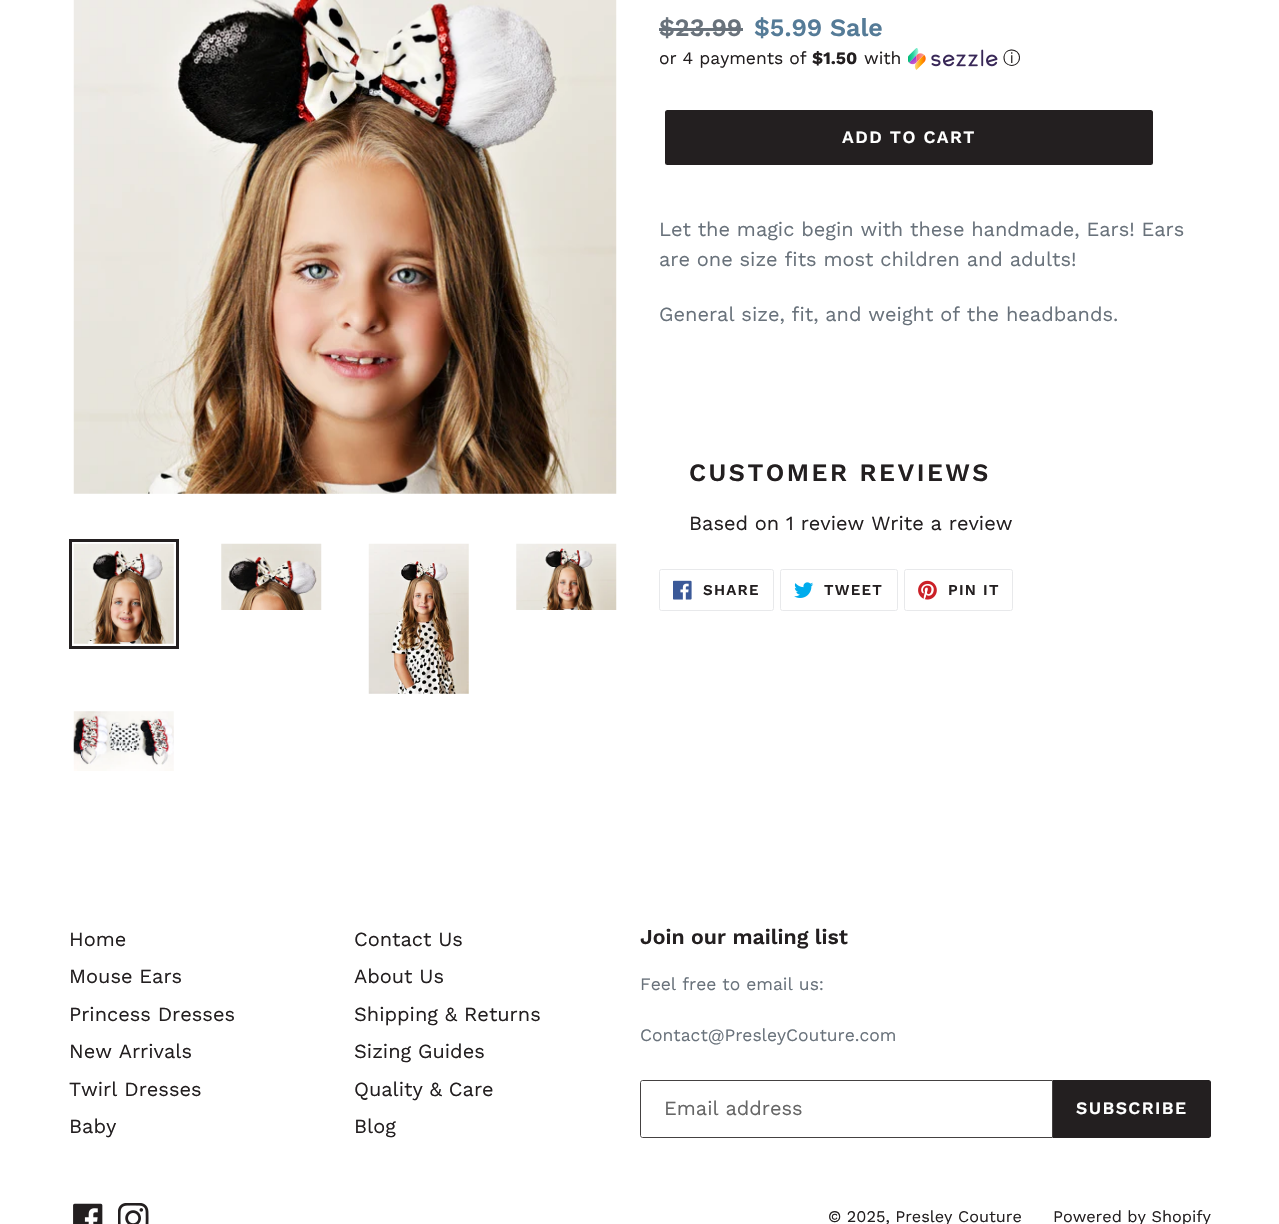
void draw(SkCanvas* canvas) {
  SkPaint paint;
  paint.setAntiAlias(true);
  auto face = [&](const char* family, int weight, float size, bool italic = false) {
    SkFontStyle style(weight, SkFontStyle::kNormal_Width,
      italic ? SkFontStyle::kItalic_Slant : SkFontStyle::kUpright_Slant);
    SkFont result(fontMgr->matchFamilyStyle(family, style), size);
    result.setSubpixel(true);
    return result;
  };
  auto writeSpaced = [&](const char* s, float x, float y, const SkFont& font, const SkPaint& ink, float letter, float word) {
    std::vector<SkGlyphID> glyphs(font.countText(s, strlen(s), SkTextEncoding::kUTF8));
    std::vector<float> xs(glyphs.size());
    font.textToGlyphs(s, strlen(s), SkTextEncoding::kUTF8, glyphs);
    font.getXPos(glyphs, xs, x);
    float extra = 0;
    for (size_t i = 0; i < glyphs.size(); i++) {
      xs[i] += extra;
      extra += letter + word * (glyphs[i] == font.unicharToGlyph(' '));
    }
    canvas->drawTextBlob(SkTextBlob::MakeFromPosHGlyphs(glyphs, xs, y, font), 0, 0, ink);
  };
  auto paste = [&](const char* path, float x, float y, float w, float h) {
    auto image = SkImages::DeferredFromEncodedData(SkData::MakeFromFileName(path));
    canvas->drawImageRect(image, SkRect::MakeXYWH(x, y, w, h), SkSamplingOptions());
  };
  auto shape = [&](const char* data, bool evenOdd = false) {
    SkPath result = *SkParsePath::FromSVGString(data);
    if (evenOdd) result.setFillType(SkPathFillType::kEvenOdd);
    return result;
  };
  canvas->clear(0xffffffff);
  paste("img/1.png", 73, 0, 544, 494);
  paint.setStroke(true);
  paint.setStrokeWidth(3);
  paint.setColor(0xff231f20);
  canvas->drawRect(SkRect::MakeXYWH(70.5f, 540.5f, 107, 107), paint);
  paste("img/2.png", 73, 543, 101, 101);
  paste("img/3.png", 221, 543, 101, 67);
  paste("img/4.png", 368, 543, 101, 151);
  paste("img/5.png", 516, 543, 101, 67);
  paste("img/6.png", 73, 711, 101, 60);
  paint.setStroke(false);
  paint.setColor(0xff69727b);
  canvas->drawRect(SkRect::MakeXYWH(659, 28, 84, 3), paint);
  paste("img/7.png", 908, 48, 90, 22);
  paint.setColor(0xff231f20);
  canvas->drawRoundRect(SkRect::MakeXYWH(665, 110, 488, 55), 2.5f, 2.5f, paint);
  paint.setStroke(true);
  paint.setStrokeWidth(1);
  paint.setColor(0xffe8e9eb);
  canvas->drawRoundRect(SkRect::MakeXYWH(659.5f, 569.5f, 114, 41), 2, 2, paint);
  paste("img/8.png", 673, 580, 19, 20);
  canvas->drawRoundRect(SkRect::MakeXYWH(780.5f, 569.5f, 117, 41), 2, 2, paint);
  paste("img/9.png", 794, 582, 20, 16);
  canvas->drawRoundRect(SkRect::MakeXYWH(904.5f, 569.5f, 108, 41), 2, 2, paint);
  paste("img/10.png", 918, 580, 19, 20);
  paint.setColor(0xff444141);
  canvas->drawPath(shape("M642.5 1080.5H1052.5V1137.5H642.5C641.5 1137.5 640.5 1136.5 640.5 1135.5V1082.5C640.5 1081.5 641.5 1080.5 642.5 1080.5Z"), paint);
  paint.setStroke(false);
  paint.setColor(0xff231f20);
  canvas->drawPath(shape("M1053 1080H1208.5C1210 1080 1211 1081 1211 1082.5V1135.5C1211 1137 1210 1138 1208.5 1138H1053Z"), paint);
  paste("img/11.png", 73, 1203, 30, 21);
  paste("img/12.png", 118, 1203, 31, 21);
  auto f0 = face("Work Sans", 600, 25);
  paint.setColor(0xff69727b);
  canvas->drawString("$23.99", 659, 36, f0, paint);
  paint.setColor(0xff557b97);
  canvas->drawString("$5.99 Sale", 754, 36, f0, paint);
  auto f1 = face("Work Sans", 400, 17.5f);
  paint.setColor(0xff231f20);
  canvas->drawString("or 4 payments of", 659, 64, f1, paint);
  auto f2 = face("Work Sans", 700, 17.5f);
  canvas->drawString("$1.50", 812, 64, f2, paint);
  canvas->drawString("with", 864, 64, f1, paint);
  auto f3 = face("WenQuanYi Zen Hei", 500, 17.5f);
  canvas->drawString("ⓘ", 1003, 64, f3, paint);
  auto f4 = face("Work Sans", 600, 17.5f);
  paint.setColor(0xffffffff);
  writeSpaced("ADD TO CART", 842, 143, f4, paint, 1.4f, 0);
  auto f5 = face("Work Sans", 400, 20);
  paint.setColor(0xff69727b);
  {
    const struct { const char* s; float x, y; } items[] = {
      {"Let the magic begin with these handmade, Ears! Ears", 659, 236},
      {"are one size fits most children and adults!", 659, 266},
      {"General size, fit, and weight of the headbands.", 659, 321},
    };
    for (auto [s, x, y] : items) {
      canvas->drawString(s, x, y, f5, paint);
    }
  }
  paint.setColor(0xff231f20);
  writeSpaced("CUSTOMER REVIEWS", 689, 481, f0, paint, 2.5f, 0);
  canvas->drawString("Based on 1 review Write a review", 689, 530, f5, paint);
  auto f6 = face("Work Sans", 600, 15);
  {
    const struct { const char* s; float x, y; } items[] = {
      {"SHARE", 703, 595},
      {"TWEET", 824, 595},
      {"PIN IT", 948, 595},
    };
    for (auto [s, x, y] : items) {
      writeSpaced(s, x, y, f6, paint, 1.25f, 0);
    }
  }
  {
    const struct { const char* s; float x, y; } items[] = {
      {"Home", 69, 946},
      {"Mouse Ears", 69, 983},
      {"Princess Dresses", 69, 1021},
      {"New Arrivals", 69, 1058},
      {"Twirl Dresses", 69, 1096},
      {"Baby", 69, 1133},
      {"Contact Us", 354, 946},
      {"About Us", 354, 983},
      {"Shipping & Returns", 354, 1021},
      {"Sizing Guides", 354, 1058},
      {"Quality & Care", 354, 1096},
      {"Blog", 354, 1133},
    };
    for (auto [s, x, y] : items) {
      canvas->drawString(s, x, y, f5, paint);
    }
  }
  auto f7 = face("Work Sans", 600, 21.25f);
  canvas->drawString("Join our mailing list", 640, 944, f7, paint);
  paint.setColor(0xff69727b);
  canvas->drawString("Feel free to email us:", 640, 990, f1, paint);
  canvas->drawString("Contact@PresleyCouture.com", 640, 1041, f1, paint);
  paint.setColor(0xff666666);
  canvas->drawString("Email address", 664, 1115, f5, paint);
  paint.setColor(0xffffffff);
  writeSpaced("SUBSCRIBE", 1076, 1114, f4, paint, 1.4f, 0);
  auto f8 = face("Work Sans", 400, 16.25f);
  paint.setColor(0xff231f20);
  canvas->drawString("© 2025, Presley Couture", 828, 1222, f8, paint);
  canvas->drawString("Powered by Shopify", 1053, 1222, f8, paint);
}
